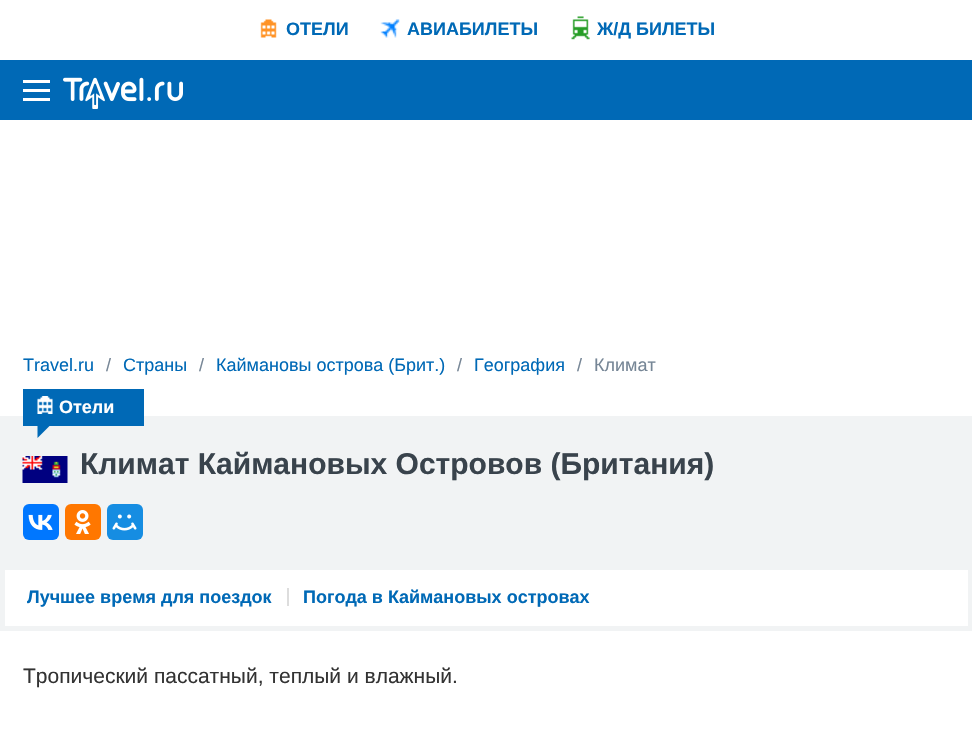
void draw(SkCanvas* canvas) {
  SkPaint paint;
  paint.setAntiAlias(true);
  auto face = [&](const char* family, int weight, float size, bool italic = false) {
    SkFontStyle style(weight, SkFontStyle::kNormal_Width,
      italic ? SkFontStyle::kItalic_Slant : SkFontStyle::kUpright_Slant);
    SkFont result(fontMgr->matchFamilyStyle(family, style), size);
    result.setSubpixel(true);
    return result;
  };
  auto paste = [&](const char* path, float x, float y, float w, float h) {
    auto image = SkImages::DeferredFromEncodedData(SkData::MakeFromFileName(path));
    canvas->drawImageRect(image, SkRect::MakeXYWH(x, y, w, h), SkSamplingOptions());
  };
  auto shape = [&](const char* data, bool evenOdd = false) {
    SkPath result = *SkParsePath::FromSVGString(data);
    if (evenOdd) result.setFillType(SkPathFillType::kEvenOdd);
    return result;
  };
  canvas->clear(0xffffffff);
  paste("img/1.png", 260, 19, 17, 19);
  paste("img/2.png", 380, 19, 20, 19);
  paste("img/3.png", 571, 16, 19, 24);
  {
    const struct { float x, y, w, h; SkColor color; } items[] = {
      {0, 60, 972, 60, 0xff0069b6},
      {23, 80, 27, 3, 0xffffffff},
      {23, 98, 27, 3, 0xffffffff},
      {23, 89, 27, 3, 0xffffffff},
    };
    for (auto [x, y, w, h, color] : items) {
      paint.setColor(color);
      canvas->drawRect(SkRect::MakeXYWH(x, y, w, h), paint);
    }
  }
  paste("img/4.png", 63, 77, 120, 32);
  paint.setColor(0xfff1f3f4);
  canvas->drawRect(SkRect::MakeXYWH(0, 416, 972, 154), paint);
  paint.setColor(0xff0069b6);
  canvas->drawRect(SkRect::MakeXYWH(23, 389, 121, 37), paint);
  paste("img/5.png", 37, 396, 16, 18);
  canvas->drawPath(shape("M37.5 424.5H51L37.5 438Z"), paint);
  paste("img/6.png", 22, 456, 46, 27);
  paint.setColor(0xff0077ff);
  canvas->drawRoundRect(SkRect::MakeXYWH(23, 504, 36, 36), 6, 6, paint);
  paste("img/7.png", 28, 514, 25, 16);
  paint.setColor(0xffff7700);
  canvas->drawRoundRect(SkRect::MakeXYWH(65, 504, 36, 36), 6, 6, paint);
  paste("img/8.png", 74, 510, 17, 24);
  paint.setColor(0xff168de2);
  canvas->drawRoundRect(SkRect::MakeXYWH(107, 504, 36, 36), 6, 6, paint);
  paste("img/9.png", 112, 514, 25, 17);
  {
    const struct { float x, y, w, h; SkColor color; } items[] = {
      {968, 570, 4, 60, 0xfff1f3f4},
      {0, 626, 972, 5, 0xfff1f3f4},
      {0, 570, 5, 60, 0xfff1f3f4},
      {287, 588, 2, 18, 0xffdddddd},
    };
    for (auto [x, y, w, h, color] : items) {
      paint.setColor(color);
      canvas->drawRect(SkRect::MakeXYWH(x, y, w, h), paint);
    }
  }
  auto f0 = face("Liberation Sans", 700, 18);
  paint.setColor(0xff0069b6);
  {
    const struct { const char* s; float x, y; } items[] = {
      {"ОТЕЛИ", 286, 35},
      {"АВИАБИЛЕТЫ", 407, 35},
      {"Ж/Д БИЛЕТЫ", 597, 35},
    };
    for (auto [s, x, y] : items) {
      canvas->drawString(s, x, y, f0, paint);
    }
  }
  auto f1 = face("Liberation Sans", 400, 18);
  canvas->drawString("Travel.ru", 23, 371, f1, paint);
  paint.setColor(0xff768696);
  canvas->drawString("/", 106, 371, f1, paint);
  paint.setColor(0xff0069b6);
  canvas->drawString("Страны", 123, 371, f1, paint);
  paint.setColor(0xff768696);
  canvas->drawString("/", 199, 371, f1, paint);
  paint.setColor(0xff0069b6);
  canvas->drawString("Каймановы острова (Брит.)", 216, 371, f1, paint);
  paint.setColor(0xff768696);
  canvas->drawString("/", 457, 371, f1, paint);
  paint.setColor(0xff0069b6);
  canvas->drawString("География", 474, 371, f1, paint);
  paint.setColor(0xff768696);
  canvas->drawString("/", 577, 371, f1, paint);
  canvas->drawString("Климат", 594, 371, f1, paint);
  paint.setColor(0xffffffff);
  canvas->drawString("Отели", 59, 413, f0, paint);
  auto f2 = face("Liberation Sans", 700, 30);
  paint.setColor(0xff39434c);
  canvas->drawString("Климат Каймановых Островов (Британия)", 80, 474, f2, paint);
  paint.setColor(0xff0069b6);
  canvas->drawString("Лучшее время для поездок", 27, 603, f0, paint);
  canvas->drawString("Погода в Каймановых островах", 303, 603, f0, paint);
  auto f3 = face("Liberation Sans", 400, 21);
  paint.setColor(0xff333333);
  canvas->drawString("Тропический пассатный, теплый и влажный.", 23, 683, f3, paint);
}
